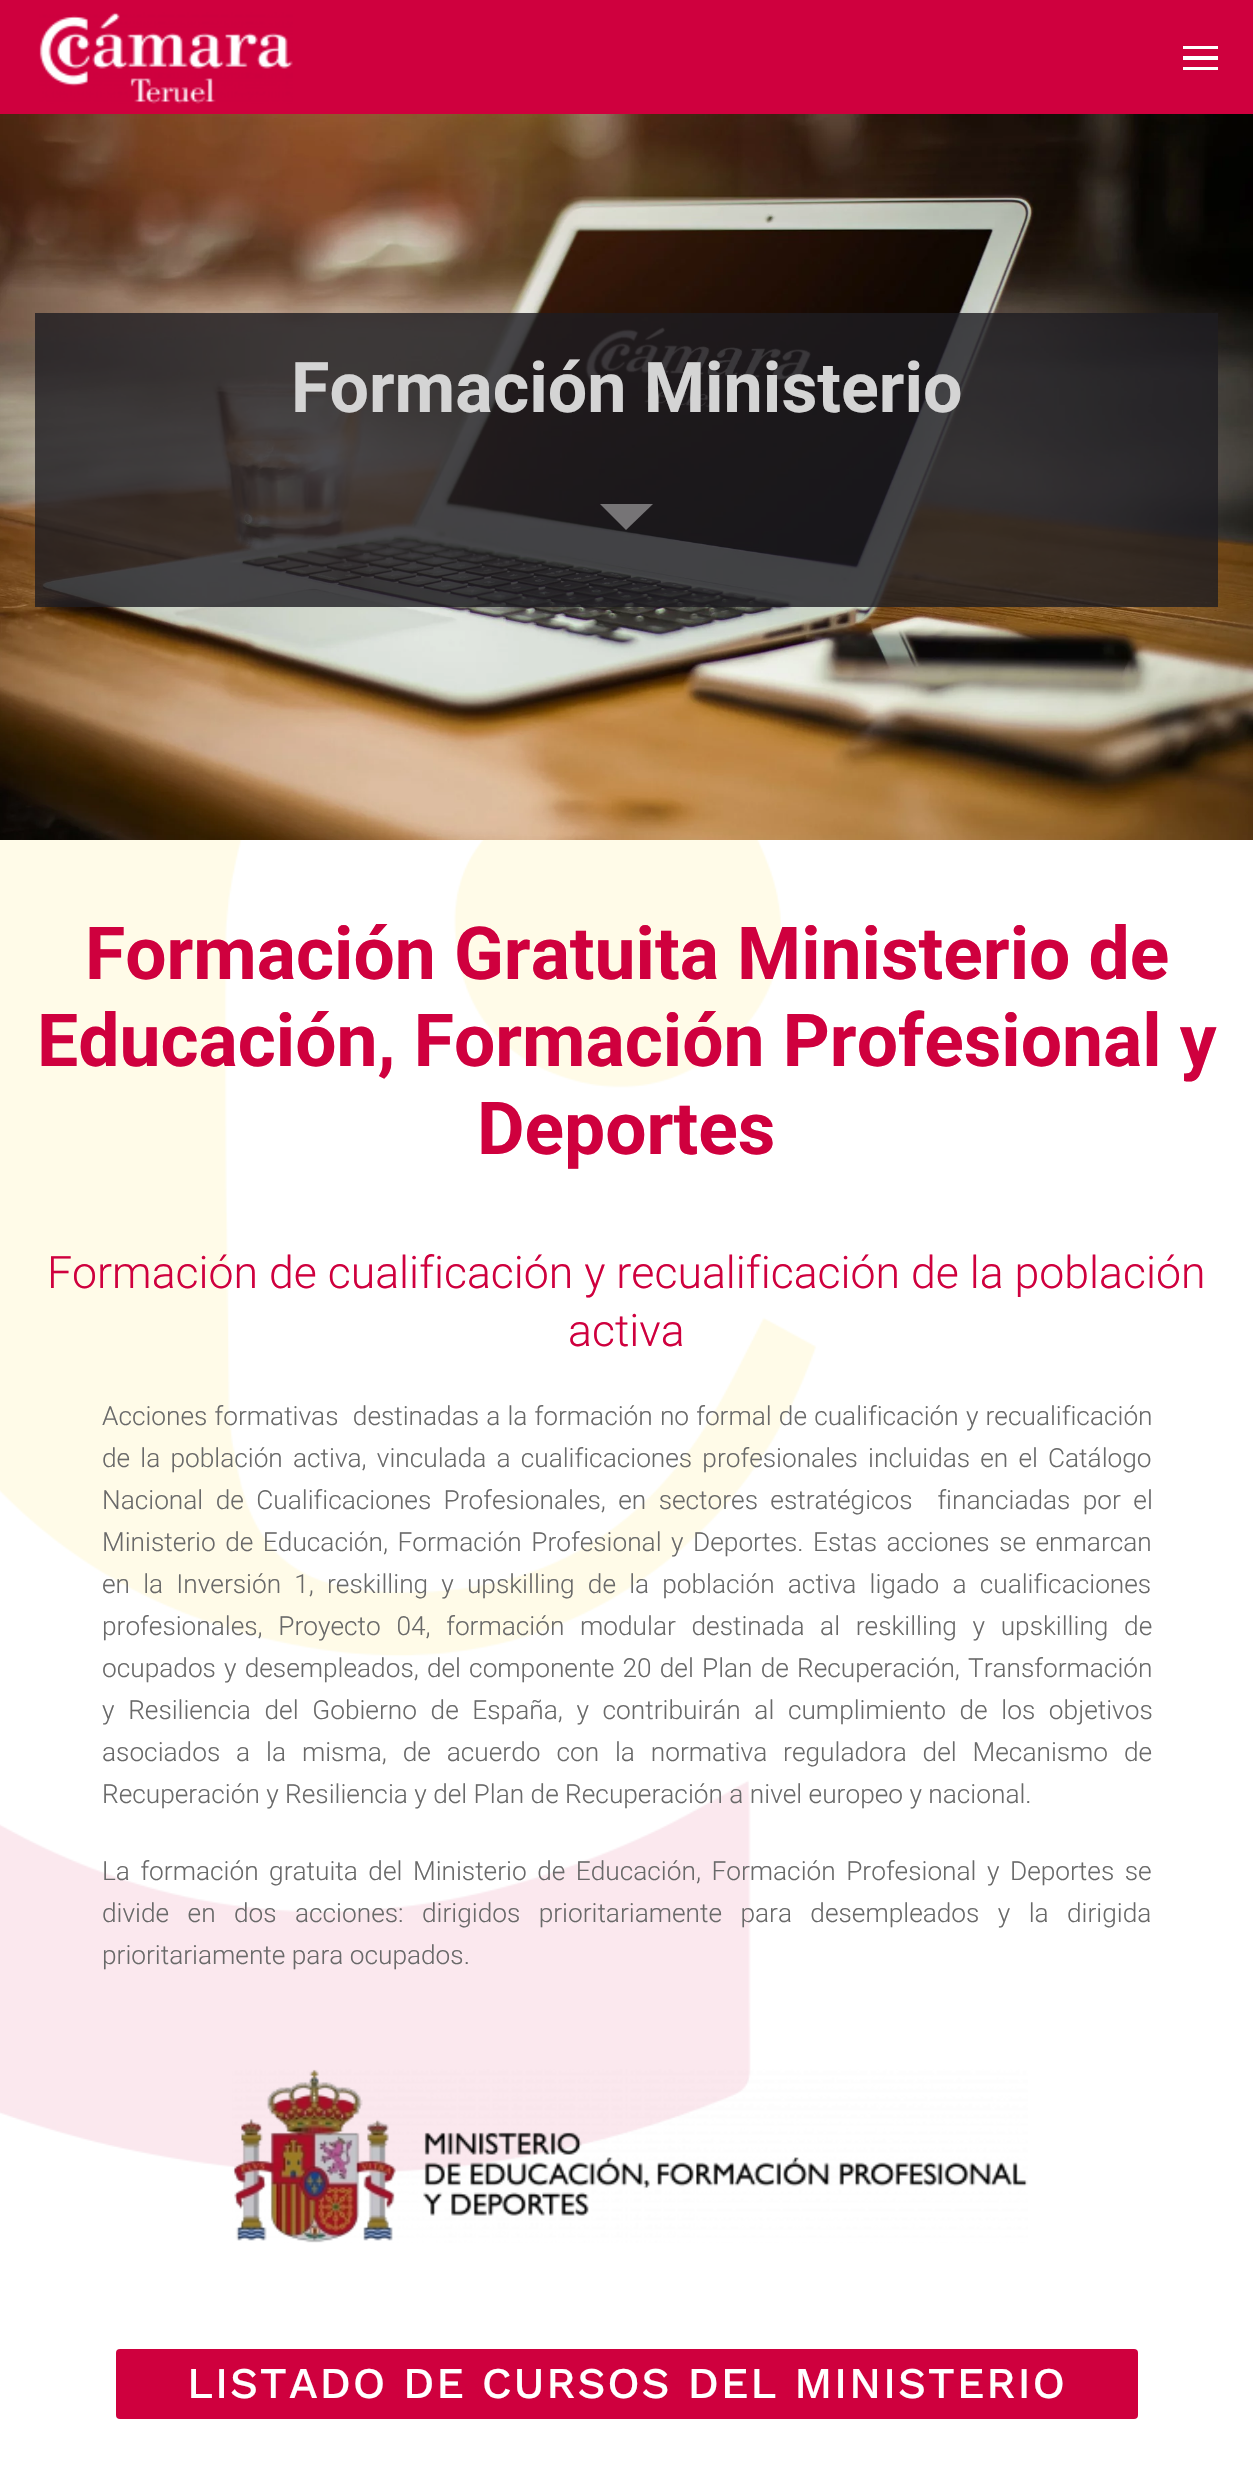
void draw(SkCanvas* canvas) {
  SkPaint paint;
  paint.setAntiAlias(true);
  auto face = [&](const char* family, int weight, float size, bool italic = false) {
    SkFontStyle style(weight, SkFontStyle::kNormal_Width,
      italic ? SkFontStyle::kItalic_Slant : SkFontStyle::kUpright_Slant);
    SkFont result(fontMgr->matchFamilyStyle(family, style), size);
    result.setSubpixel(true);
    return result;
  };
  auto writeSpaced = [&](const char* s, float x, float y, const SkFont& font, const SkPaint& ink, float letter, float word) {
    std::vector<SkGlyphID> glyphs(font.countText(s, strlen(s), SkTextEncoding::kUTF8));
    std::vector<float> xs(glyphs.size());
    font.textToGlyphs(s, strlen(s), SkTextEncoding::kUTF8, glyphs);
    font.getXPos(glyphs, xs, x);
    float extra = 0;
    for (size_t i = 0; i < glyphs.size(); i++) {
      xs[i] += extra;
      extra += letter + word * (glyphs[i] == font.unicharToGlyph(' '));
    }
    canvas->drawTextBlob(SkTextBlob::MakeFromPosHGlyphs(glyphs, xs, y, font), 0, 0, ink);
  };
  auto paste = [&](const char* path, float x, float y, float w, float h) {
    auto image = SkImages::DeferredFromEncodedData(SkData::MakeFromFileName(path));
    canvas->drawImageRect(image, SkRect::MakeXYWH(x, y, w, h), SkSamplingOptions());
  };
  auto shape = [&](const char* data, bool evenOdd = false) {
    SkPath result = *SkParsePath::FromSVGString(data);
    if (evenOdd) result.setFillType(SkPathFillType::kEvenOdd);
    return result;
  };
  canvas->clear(0xffffffff);
  paint.setColor(0xffcf003e);
  canvas->drawRect(SkRect::MakeXYWH(0, 0, 1253, 114), paint);
  paste("img/1.png", 39, 12, 254, 92);
  {
    const struct { float x, y, w, h; SkColor color; } items[] = {
      {1183, 46, 35, 3, 0xffffffff},
      {1183, 56, 35, 4, 0xffffffff},
      {1183, 67, 35, 3, 0xffffffff},
    };
    for (auto [x, y, w, h, color] : items) {
      paint.setColor(color);
      canvas->drawRect(SkRect::MakeXYWH(x, y, w, h), paint);
    }
  }
  paste("img/2.png", 0, 114, 1253, 726);
  paint.setColor(0xcc1d1c21);
  canvas->drawRect(SkRect::MakeXYWH(35, 313, 1183, 294), paint);
  paint.setColor(0xff767476);
  canvas->drawPath(shape("M600 504H653L626 530Z"), paint);
  paste("img/3.png", 0, 840, 817, 1333);
  paste("img/4.png", 232, 2069, 796, 174);
  paint.setColor(0xffcf003e);
  canvas->drawRoundRect(SkRect::MakeXYWH(116, 2349, 1022, 70), 4, 4, paint);
  auto f0 = face("Roboto", 700, 70);
  paint.setColor(0xffd4d4d4);
  canvas->drawString("Formación Ministerio", 291, 412, f0, paint);
  auto f1 = face("Roboto", 700, 73.2f);
  paint.setColor(0xffcf003e);
  {
    const struct { const char* s; float x, y; } items[] = {
      {"Formación Gratuita Ministerio de", 85, 979},
      {"Educación, Formación Profesional y", 37, 1066},
      {"Deportes", 477, 1154},
    };
    for (auto [s, x, y] : items) {
      canvas->drawString(s, x, y, f1, paint);
    }
  }
  auto f2 = face("Roboto", 300, 44.6f);
  canvas->drawString("Formación de cualificación y recualificación de la población", 47, 1288, f2, paint);
  canvas->drawString("activa", 568, 1346, f2, paint);
  auto f3 = face("Roboto", 300, 26.25f);
  paint.setColor(0xff696969);
  writeSpaced("Acciones formativas  destinadas a la formación no formal de cualificación y recualificación", 102, 1425, f3, paint, 0, 0.75f);
  writeSpaced("de la población activa, vinculada a cualificaciones profesionales incluidas en el Catálogo", 102, 1467, f3, paint, 0, 3.75f);
  writeSpaced("Nacional de Cualificaciones Profesionales, en sectores estratégicos  financiadas por el", 102, 1509, f3, paint, 0, 6);
  writeSpaced("Ministerio de Educación, Formación Profesional y Deportes. Estas acciones se enmarcan", 102, 1551, f3, paint, 0, 3.1f);
  writeSpaced("en la Inversión 1, reskilling y upskilling de la población activa ligado a cualificaciones", 102, 1593, f3, paint, 0, 6.75f);
  writeSpaced("profesionales, Proyecto 04, formación modular destinada al reskilling y upskilling de", 102, 1635, f3, paint, 0, 9.25f);
  writeSpaced("ocupados y desempleados, del componente 20 del Plan de Recuperación, Transformación", 102, 1677, f3, paint, 0, 1.75f);
  writeSpaced("y Resiliencia del Gobierno de España, y contribuirán al cumplimiento de los objetivos", 102, 1719, f3, paint, 0, 7.25f);
  writeSpaced("asociados a la misma, de acuerdo con la normativa reguladora del Mecanismo de", 102, 1761, f3, paint, 0, 9.5f);
  canvas->drawString("Recuperación y Resiliencia y del Plan de Recuperación a nivel europeo y nacional.", 102, 1803, f3, paint);
  writeSpaced("La formación gratuita del Ministerio de Educación, Formación Profesional y Deportes se", 102, 1880, f3, paint, 0, 4.1f);
  writeSpaced("divide en dos acciones: dirigidos prioritariamente para desempleados y la dirigida", 102, 1922, f3, paint, 0, 12);
  canvas->drawString("prioritariamente para ocupados.", 102, 1964, f3, paint);
  auto f4 = face("Work Sans", 500, 43.75f);
  paint.setColor(0xffffffff);
  writeSpaced("LISTADO DE CURSOS DEL MINISTERIO", 187, 2398, f4, paint, 1.75f, 0);
}
